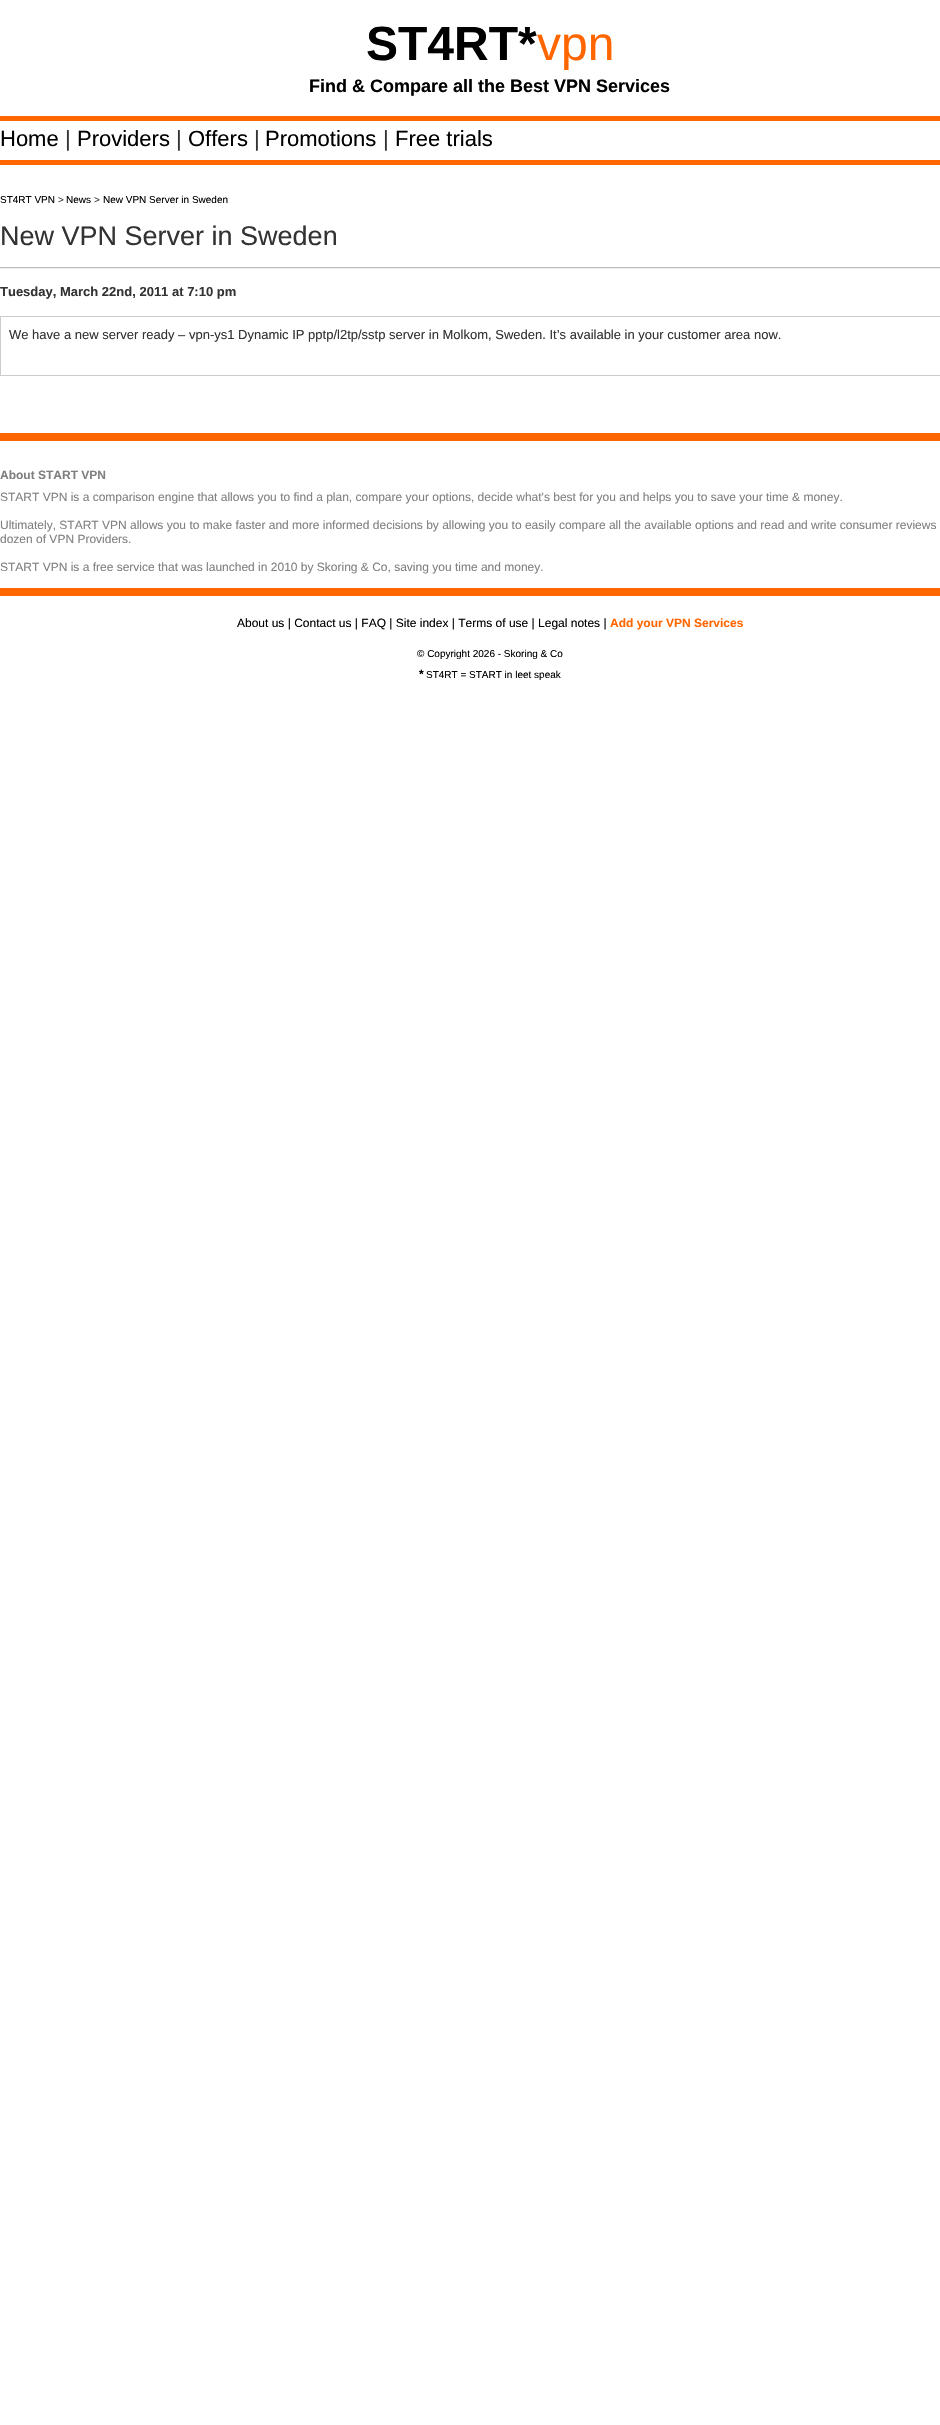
void draw(SkCanvas* canvas) {
  SkPaint paint;
  paint.setAntiAlias(true);
  auto face = [&](const char* family, int weight, float size, bool italic = false) {
    SkFontStyle style(weight, SkFontStyle::kNormal_Width,
      italic ? SkFontStyle::kItalic_Slant : SkFontStyle::kUpright_Slant);
    SkFont result(fontMgr->matchFamilyStyle(family, style), size);
    result.setSubpixel(true);
    return result;
  };
  auto paste = [&](const char* path, float x, float y, float w, float h) {
    auto image = SkImages::DeferredFromEncodedData(SkData::MakeFromFileName(path));
    canvas->drawImageRect(image, SkRect::MakeXYWH(x, y, w, h), SkSamplingOptions());
  };
  canvas->clear(0xffffffff);
  paint.setColor(0xffff6600);
  canvas->drawRect(SkRect::MakeXYWH(0, 116, 940, 5), paint);
  canvas->drawRect(SkRect::MakeXYWH(0, 160, 940, 5), paint);
  paste("img/1.png", 0, 267, 940, 2);
  {
    const struct { float x, y, w, h; SkColor color; } items[] = {
      {0, 316, 940, 1, 0xffcccccc},
      {0, 316, 1, 49, 0xffcccccc},
      {0, 375, 940, 1, 0xffcccccc},
      {0, 365, 1, 11, 0xffcccccc},
      {0, 433, 940, 8, 0xffff6600},
      {0, 588, 940, 8, 0xffff6600},
    };
    for (auto [x, y, w, h, color] : items) {
      paint.setColor(color);
      canvas->drawRect(SkRect::MakeXYWH(x, y, w, h), paint);
    }
  }
  auto f0 = face("Liberation Sans", 700, 48);
  paint.setColor(0xff000000);
  canvas->drawString("ST4RT*", 366, 60, f0, paint);
  auto f1 = face("Liberation Sans", 400, 48);
  paint.setColor(0xffff6600);
  canvas->drawString("vpn", 537, 60, f1, paint);
  auto f2 = face("Liberation Sans", 700, 18);
  paint.setColor(0xff000000);
  canvas->drawString("Find & Compare all the Best VPN Services", 309, 92, f2, paint);
  auto f3 = face("Liberation Sans", 400, 22);
  canvas->drawString("Home", 0, 146, f3, paint);
  paint.setColor(0xff333333);
  canvas->drawString("|", 65, 146, f3, paint);
  paint.setColor(0xff000000);
  canvas->drawString("Providers", 77, 146, f3, paint);
  paint.setColor(0xff333333);
  canvas->drawString("|", 176, 146, f3, paint);
  paint.setColor(0xff000000);
  canvas->drawString("Offers", 188, 146, f3, paint);
  paint.setColor(0xff333333);
  canvas->drawString("|", 254, 146, f3, paint);
  paint.setColor(0xff000000);
  canvas->drawString("Promotions", 265, 146, f3, paint);
  paint.setColor(0xff333333);
  canvas->drawString("|", 383, 146, f3, paint);
  paint.setColor(0xff000000);
  canvas->drawString("Free trials", 395, 146, f3, paint);
  auto f4 = face("Liberation Sans", 400, 10);
  canvas->drawString("ST4RT VPN", 0, 203, f4, paint);
  paint.setColor(0xff333333);
  canvas->drawString(">", 58, 203, f4, paint);
  paint.setColor(0xff000000);
  canvas->drawString("News", 66, 203, f4, paint);
  paint.setColor(0xff333333);
  canvas->drawString(">", 94, 203, f4, paint);
  paint.setColor(0xff000000);
  canvas->drawString("New VPN Server in Sweden", 103, 203, f4, paint);
  auto f5 = face("Liberation Sans", 400, 27);
  paint.setColor(0xff333333);
  canvas->drawString("New VPN Server in Sweden", 0, 245, f5, paint);
  auto f6 = face("Liberation Sans", 700, 13);
  canvas->drawString("Tuesday, March 22nd, 2011 at 7:10 pm", 0, 296, f6, paint);
  auto f7 = face("Liberation Sans", 400, 13);
  canvas->drawString("We have a new server ready – vpn-ys1 Dynamic IP pptp/l2tp/sstp server in Molkom, Sweden. It’s available in your customer area now.", 9, 339, f7, paint);
  auto f8 = face("Liberation Sans", 700, 12);
  paint.setColor(0xff808080);
  canvas->drawString("About START VPN", 0, 479, f8, paint);
  auto f9 = face("Liberation Sans", 400, 12);
  {
    const struct { const char* s; float x, y; } items[] = {
      {"START VPN is a comparison engine that allows you to find a plan, compare your options, decide what's best for you and helps you to save your time & money.", 0, 501},
      {"Ultimately, START VPN allows you to make faster and more informed decisions by allowing you to easily compare all the available options and read and write consumer reviews", 0, 529},
      {"dozen of VPN Providers.", 0, 543},
      {"START VPN is a free service that was launched in 2010 by Skoring & Co, saving you time and money.", 0, 571},
    };
    for (auto [s, x, y] : items) {
      canvas->drawString(s, x, y, f9, paint);
    }
  }
  paint.setColor(0xff000000);
  canvas->drawString("About us | Contact us | FAQ | Site index | Terms of use | Legal notes |", 237, 627, f9, paint);
  paint.setColor(0xffff6600);
  canvas->drawString("Add your VPN Services", 610, 627, f8, paint);
  paint.setColor(0xff000000);
  canvas->drawString("© Copyright 2026 - Skoring & Co", 417, 657, f4, paint);
  canvas->drawString("*", 419, 678, f8, paint);
  canvas->drawString("ST4RT = START in leet speak", 426, 678, f4, paint);
}
